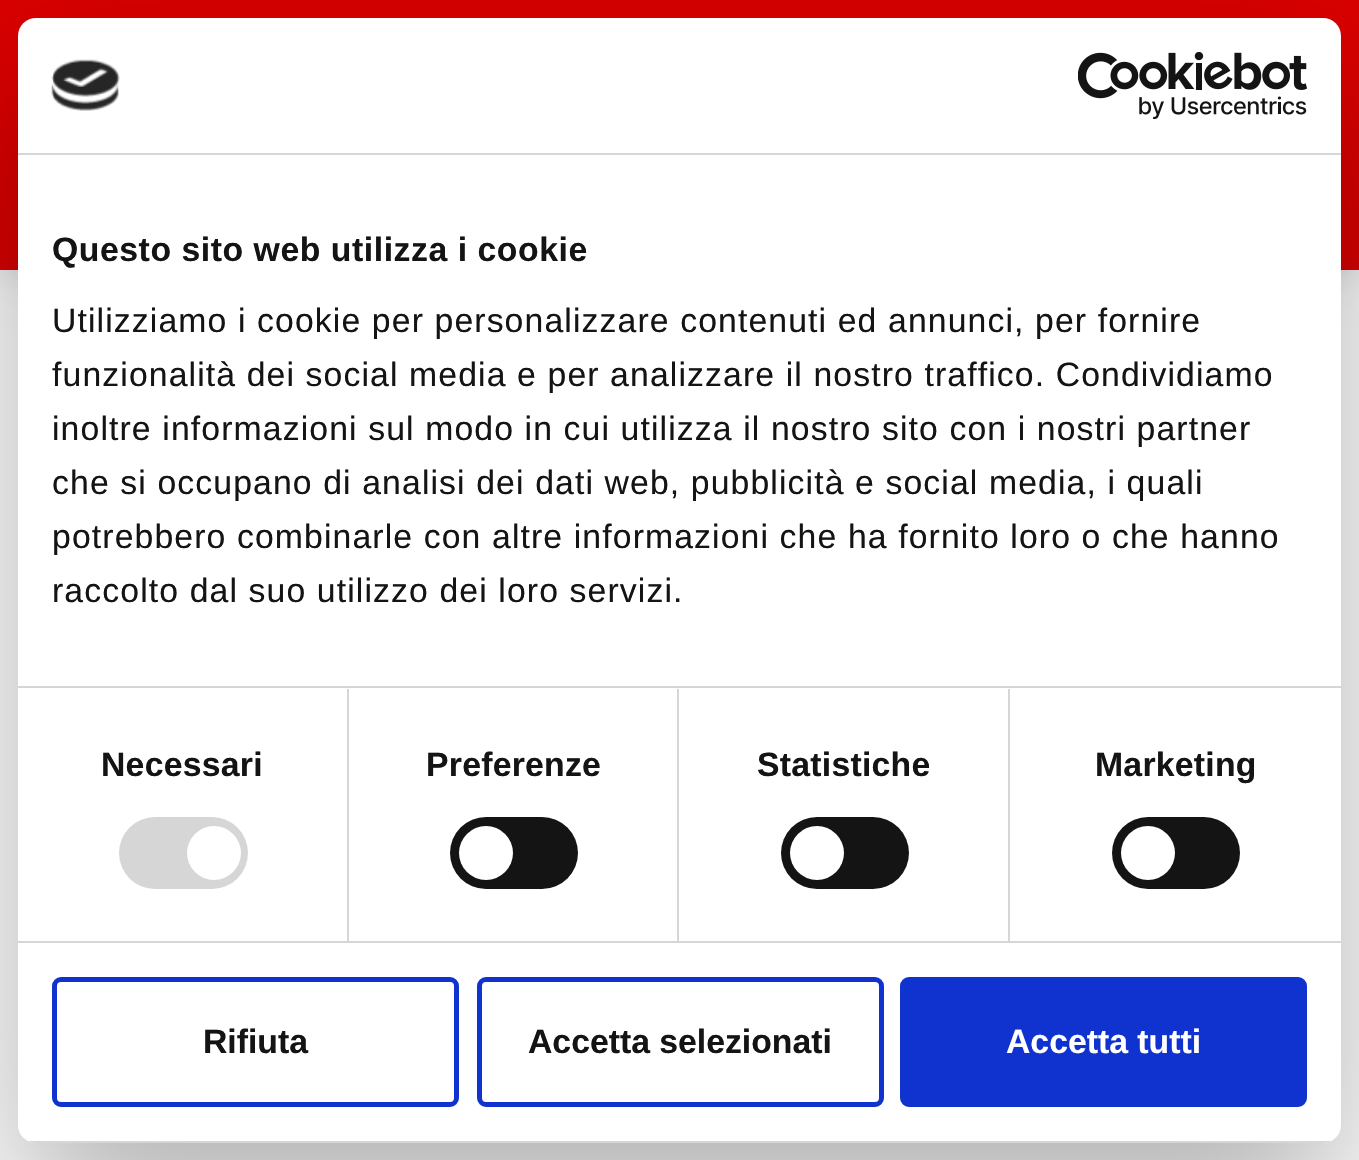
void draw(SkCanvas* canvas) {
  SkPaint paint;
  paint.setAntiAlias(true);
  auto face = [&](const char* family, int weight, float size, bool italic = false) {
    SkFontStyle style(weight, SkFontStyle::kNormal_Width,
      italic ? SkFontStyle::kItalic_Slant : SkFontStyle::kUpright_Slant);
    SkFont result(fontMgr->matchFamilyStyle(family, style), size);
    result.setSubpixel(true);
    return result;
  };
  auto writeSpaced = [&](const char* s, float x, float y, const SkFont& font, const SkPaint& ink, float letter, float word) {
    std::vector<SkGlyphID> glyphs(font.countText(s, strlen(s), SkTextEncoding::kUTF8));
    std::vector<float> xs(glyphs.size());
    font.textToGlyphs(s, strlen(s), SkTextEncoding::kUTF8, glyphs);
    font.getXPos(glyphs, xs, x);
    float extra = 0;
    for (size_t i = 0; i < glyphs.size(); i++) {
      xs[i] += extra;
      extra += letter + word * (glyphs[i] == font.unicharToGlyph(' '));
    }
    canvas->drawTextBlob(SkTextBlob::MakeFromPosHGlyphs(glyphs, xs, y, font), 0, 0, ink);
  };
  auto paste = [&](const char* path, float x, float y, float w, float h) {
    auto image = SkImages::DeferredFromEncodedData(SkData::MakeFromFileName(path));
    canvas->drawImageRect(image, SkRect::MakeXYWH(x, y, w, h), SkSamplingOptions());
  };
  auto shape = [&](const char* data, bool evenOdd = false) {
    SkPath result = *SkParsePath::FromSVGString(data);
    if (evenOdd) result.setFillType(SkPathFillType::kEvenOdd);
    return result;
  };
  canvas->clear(0xffffffff);
  paint.setColor(0x26000000);
  paint.setMaskFilter(SkMaskFilter::MakeBlur(kNormal_SkBlurStyle, 18));
  canvas->drawRect(SkRect::MakeXYWH(0, 5, 1359, 270), paint);
  paint.setMaskFilter(nullptr);
  paint.setColor(0xffda0000);
  canvas->drawRect(SkRect::MakeXYWH(0, 0, 1359, 270), paint);
  paint.setColor(0x4d000000);
  paint.setMaskFilter(SkMaskFilter::MakeBlur(kNormal_SkBlurStyle, 76.5f));
  canvas->drawRoundRect(SkRect::MakeXYWH(18, 90, 1323, 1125), 18, 18, paint);
  paint.setMaskFilter(nullptr);
  paint.setColor(0xffffffff);
  canvas->drawRoundRect(SkRect::MakeXYWH(18, 18, 1323, 1125), 18, 18, paint);
  paint.setColor(0xffd6d6d6);
  canvas->drawRect(SkRect::MakeXYWH(18, 153, 1323, 2), paint);
  paste("img/1.png", 51, 59, 69, 52);
  paste("img/2.png", 1078, 52, 229, 67);
  {
    const struct { float x, y, w, h; SkColor color; } items[] = {
      {18, 686, 1323, 2, 0xffd6d6d6},
      {18, 941, 1323, 2, 0xffd6d6d6},
      {347, 689, 2, 252, 0xffd6d6d6},
    };
    for (auto [x, y, w, h, color] : items) {
      paint.setColor(color);
      canvas->drawRect(SkRect::MakeXYWH(x, y, w, h), paint);
    }
  }
  canvas->drawRoundRect(SkRect::MakeXYWH(119, 817, 129, 72), 36, 36, paint);
  paint.setColor(0xffffffff);
  canvas->drawCircle(214, 853, 27, paint);
  paint.setColor(0xffd6d6d6);
  canvas->drawRect(SkRect::MakeXYWH(677, 689, 2, 252), paint);
  paint.setColor(0xff141414);
  canvas->drawRoundRect(SkRect::MakeXYWH(450, 817, 128, 72), 36, 36, paint);
  paint.setColor(0xffffffff);
  canvas->drawCircle(486, 853, 27, paint);
  paint.setColor(0xffd6d6d6);
  canvas->drawRect(SkRect::MakeXYWH(1008, 689, 2, 252), paint);
  paint.setColor(0xff141414);
  canvas->drawRoundRect(SkRect::MakeXYWH(781, 817, 128, 72), 36, 36, paint);
  paint.setColor(0xffffffff);
  canvas->drawCircle(817, 853, 27, paint);
  paint.setColor(0xff141414);
  canvas->drawRoundRect(SkRect::MakeXYWH(1112, 817, 128, 72), 36, 36, paint);
  paint.setColor(0xffffffff);
  canvas->drawCircle(1148, 853, 27, paint);
  canvas->save();
  canvas->clipPath(shape("M36 18H1323C1333 18 1341 26 1341 36V1125C1341 1135 1333 1143 1323 1143H36C26 1143 18 1135 18 1125V36C18 26 26 18 36 18Z"), true);
  paint.setColor(0xffd6d6d6);
  canvas->drawRect(SkRect::MakeXYWH(28, 1141, 1303, 2), paint);
  canvas->restore();
  paint.setStroke(true);
  paint.setStrokeWidth(5);
  paint.setColor(0xff1032cf);
  canvas->drawRoundRect(SkRect::MakeXYWH(54.5f, 979.5f, 402, 125), 6.5f, 6.5f, paint);
  canvas->drawRoundRect(SkRect::MakeXYWH(479.5f, 979.5f, 402, 125), 6.5f, 6.5f, paint);
  paint.setStroke(false);
  canvas->drawRoundRect(SkRect::MakeXYWH(902.5f, 979.5f, 402, 125), 6.5f, 6.5f, paint);
  paint.setStroke(true);
  canvas->drawRoundRect(SkRect::MakeXYWH(902.5f, 979.5f, 402, 125), 6.5f, 6.5f, paint);
  auto f0 = face("Liberation Sans", 700, 33.75f);
  paint.setStroke(false);
  paint.setColor(0xff141414);
  writeSpaced("Questo sito web utilizza i cookie", 52, 261, f0, paint, 0.55f, 0);
  auto f1 = face("Liberation Sans", 400, 33.75f);
  {
    const struct { const char* s; float x, y; } items[] = {
      {"Utilizziamo i cookie per personalizzare contenuti ed annunci, per fornire", 52, 332},
      {"funzionalità dei social media e per analizzare il nostro traffico. Condividiamo", 52, 386},
      {"inoltre informazioni sul modo in cui utilizza il nostro sito con i nostri partner", 52, 440},
      {"che si occupano di analisi dei dati web, pubblicità e social media, i quali", 52, 494},
      {"potrebbero combinarle con altre informazioni che ha fornito loro o che hanno", 52, 548},
      {"raccolto dal suo utilizzo dei loro servizi.", 52, 602},
    };
    for (auto [s, x, y] : items) {
      writeSpaced(s, x, y, f1, paint, 1.12f, 0);
    }
  }
  {
    const struct { const char* s; float x, y; } items[] = {
      {"Necessari", 101, 776},
      {"Preferenze", 426, 776},
      {"Statistiche", 757, 776},
      {"Marketing", 1095, 776},
    };
    for (auto [s, x, y] : items) {
      writeSpaced(s, x, y, f0, paint, 0.25f, 0);
    }
  }
  canvas->drawString("Rifiuta", 203, 1053, f0, paint);
  canvas->drawString("Accetta selezionati", 528, 1053, f0, paint);
  paint.setColor(0xffffffff);
  canvas->drawString("Accetta tutti", 1006, 1053, f0, paint);
}
